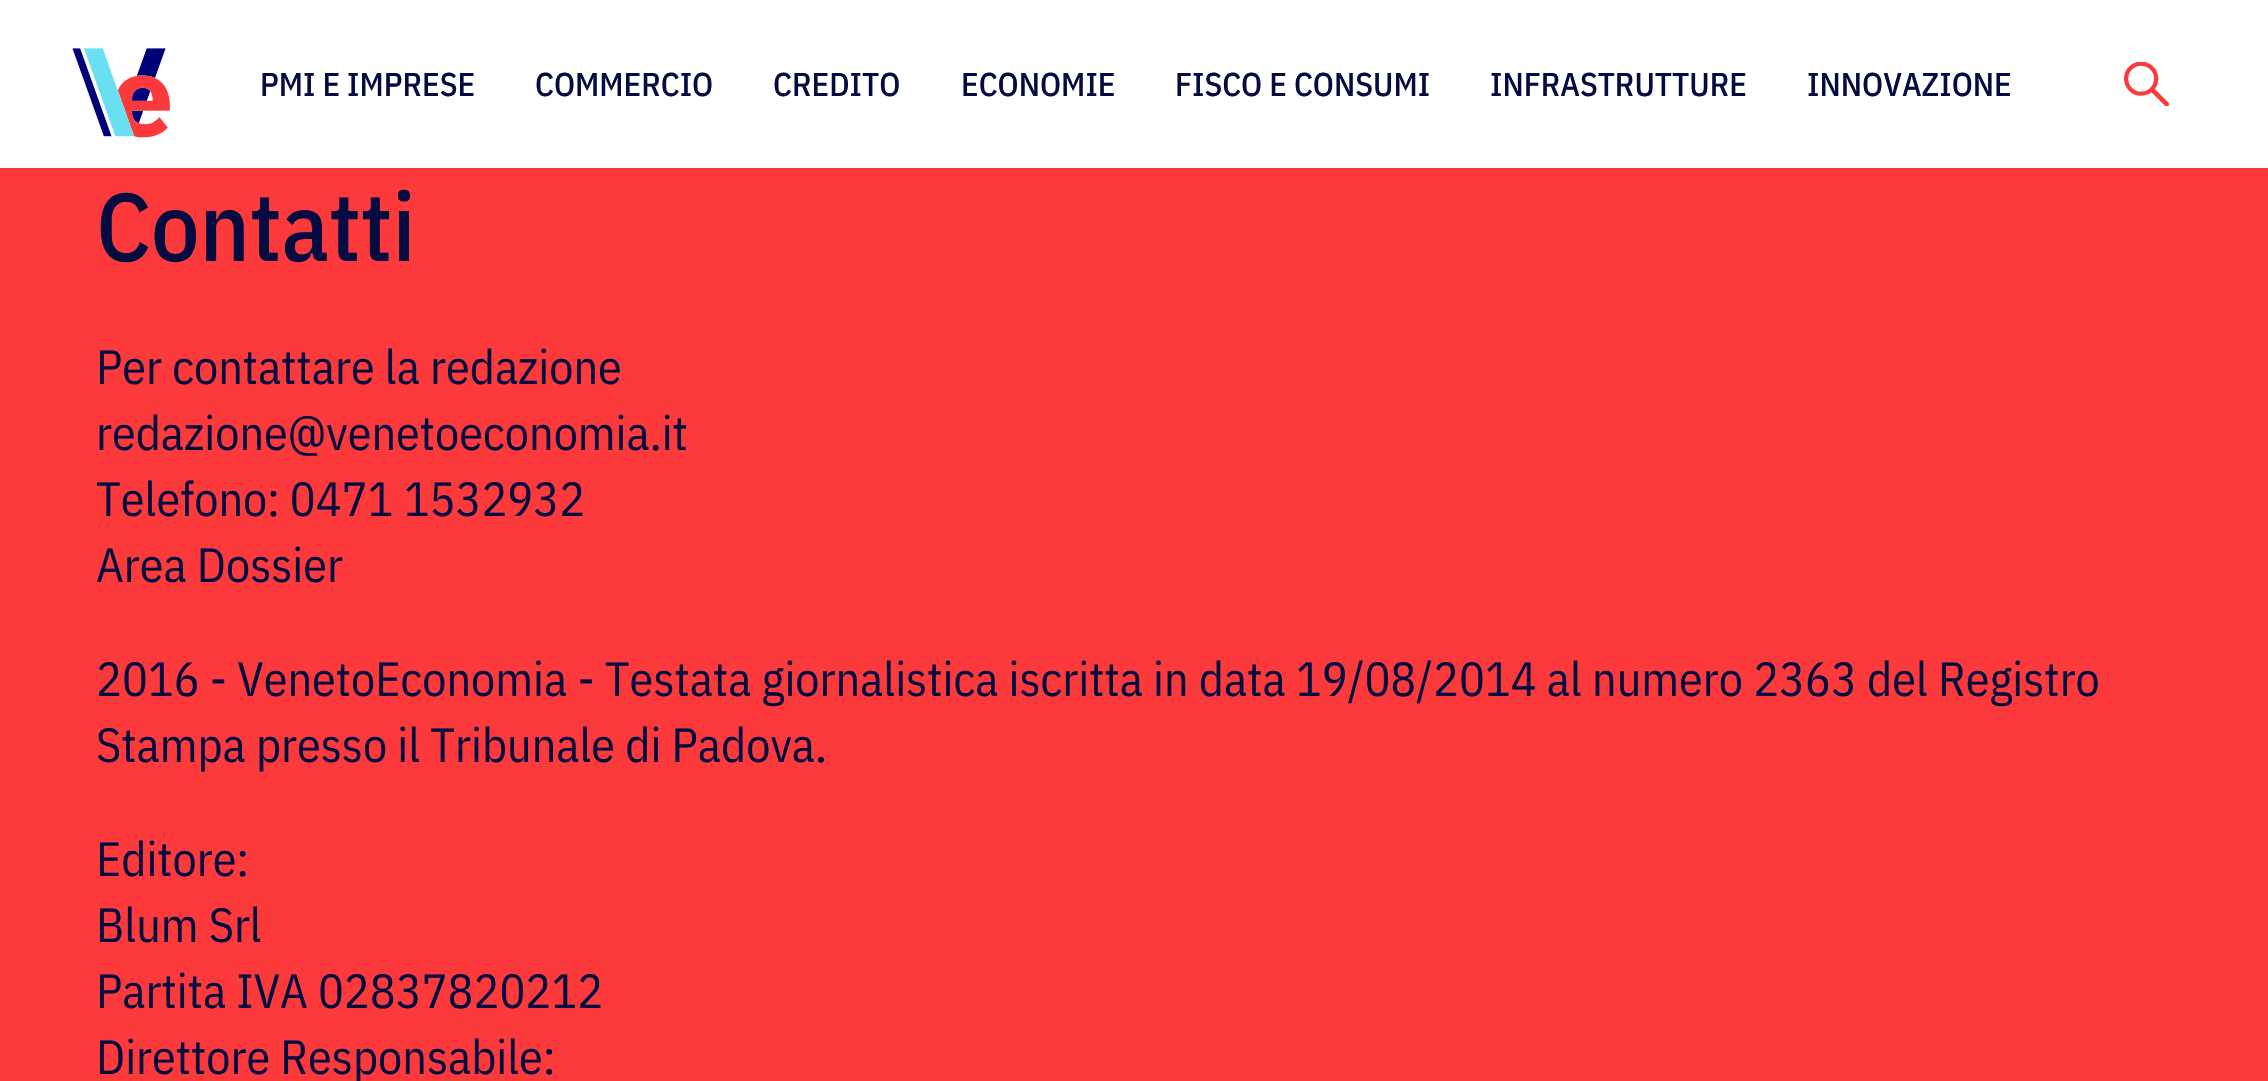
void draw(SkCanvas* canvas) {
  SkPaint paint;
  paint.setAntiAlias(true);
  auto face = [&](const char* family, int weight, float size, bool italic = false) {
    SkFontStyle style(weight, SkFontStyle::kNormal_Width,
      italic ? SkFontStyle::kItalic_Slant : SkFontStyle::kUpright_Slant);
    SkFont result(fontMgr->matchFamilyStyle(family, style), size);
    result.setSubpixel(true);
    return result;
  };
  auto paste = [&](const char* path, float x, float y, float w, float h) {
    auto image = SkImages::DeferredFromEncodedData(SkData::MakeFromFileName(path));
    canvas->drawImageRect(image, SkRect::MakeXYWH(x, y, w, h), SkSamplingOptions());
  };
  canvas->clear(0xfffc3a3b);
  paint.setColor(0xffffffff);
  canvas->drawRect(SkRect::MakeXYWH(0, 0, 2268, 168), paint);
  paste("img/1.png", 72, 48, 98, 90);
  paste("img/2.png", 2124, 62, 45, 45);
  auto f0 = face("IBM Plex Sans Condensed", 500, 33);
  paint.setColor(0xff040b40);
  {
    const struct { const char* s; float x, y; } items[] = {
      {"PMI E IMPRESE", 260, 96},
      {"COMMERCIO", 535, 96},
      {"CREDITO", 773, 96},
      {"ECONOMIE", 961, 96},
      {"FISCO E CONSUMI", 1175, 96},
      {"INFRASTRUTTURE", 1490, 96},
      {"INNOVAZIONE", 1807, 96},
    };
    for (auto [s, x, y] : items) {
      canvas->drawString(s, x, y, f0, paint);
    }
  }
  auto f1 = face("IBM Plex Sans Condensed", 500, 96);
  canvas->drawString("Contatti", 96, 261, f1, paint);
  auto f2 = face("IBM Plex Sans Condensed", 400, 48);
  {
    const struct { const char* s; float x, y; } items[] = {
      {"Per contattare la redazione", 96, 384},
      {"redazione@venetoeconomia.it", 96, 450},
      {"Telefono: 0471 1532932", 96, 516},
      {"Area Dossier", 96, 582},
      {"2016 - VenetoEconomia - Testata giornalistica iscritta in data 19/08/2014 al numero 2363 del Registro", 96, 696},
      {"Stampa presso il Tribunale di Padova.", 96, 762},
      {"Editore:", 96, 876},
      {"Blum Srl", 96, 942},
      {"Partita IVA 02837820212", 96, 1008},
      {"Direttore Responsabile:", 96, 1074},
    };
    for (auto [s, x, y] : items) {
      canvas->drawString(s, x, y, f2, paint);
    }
  }
}
